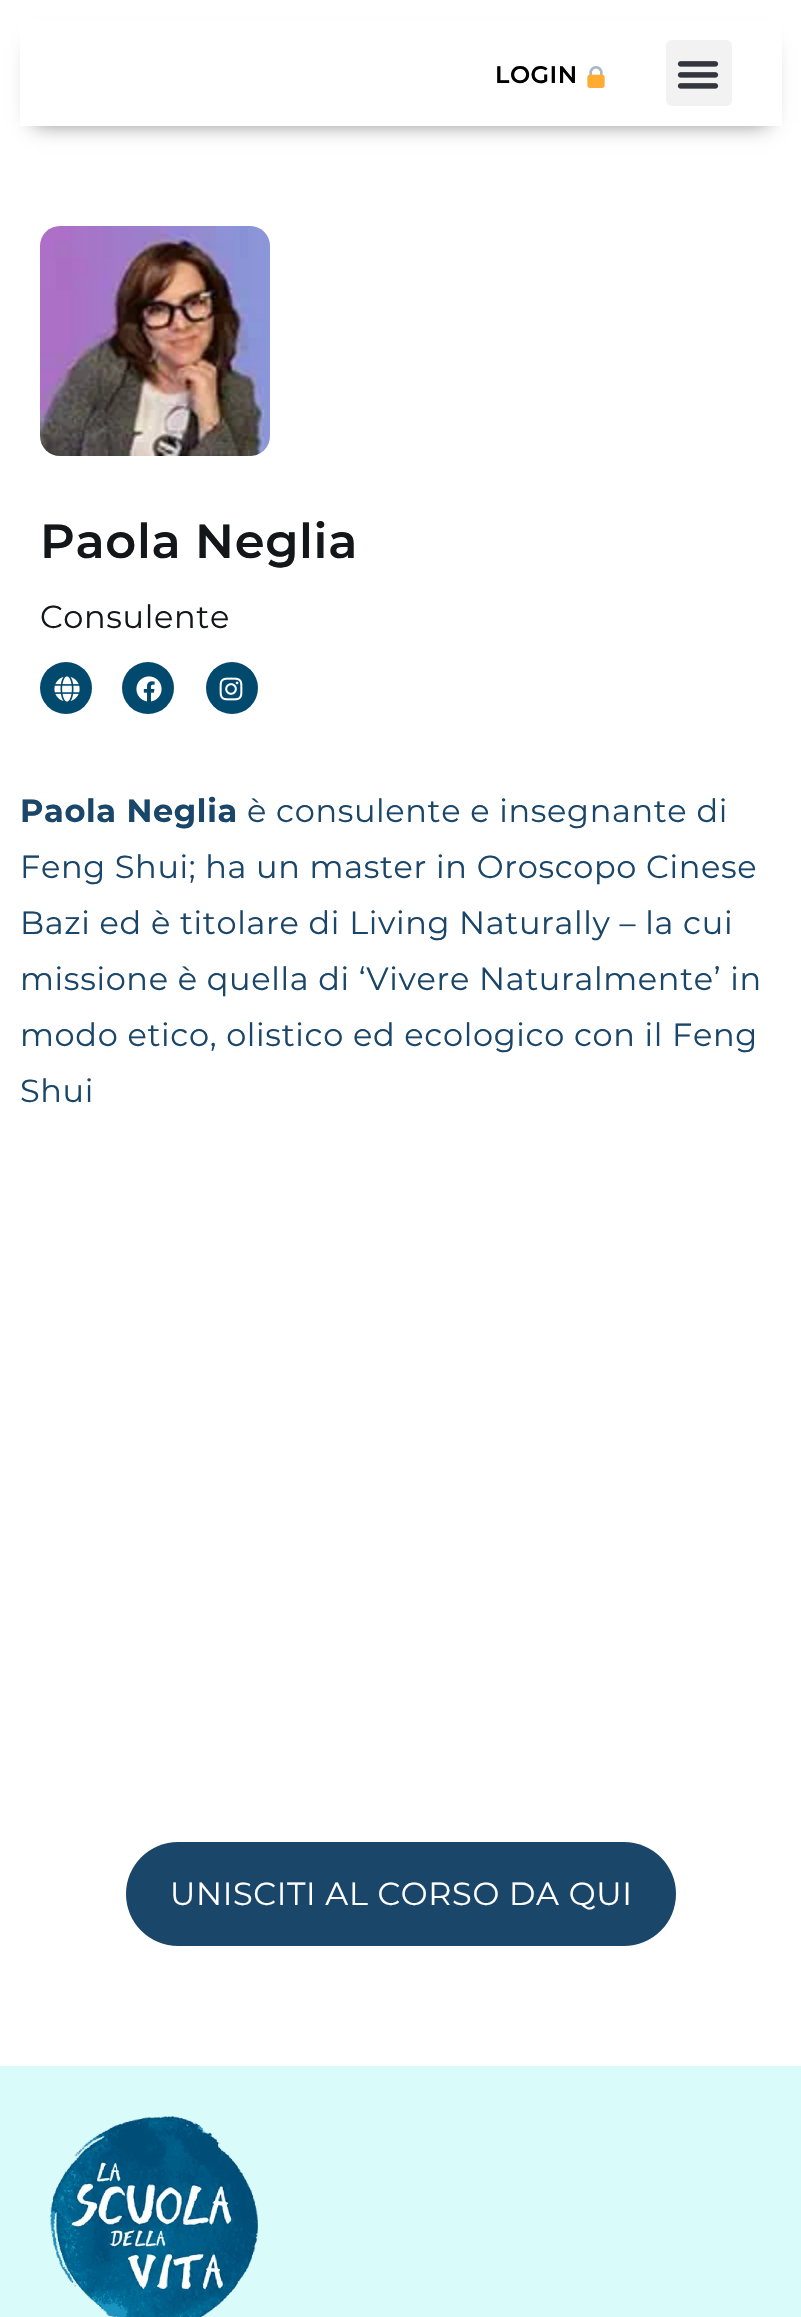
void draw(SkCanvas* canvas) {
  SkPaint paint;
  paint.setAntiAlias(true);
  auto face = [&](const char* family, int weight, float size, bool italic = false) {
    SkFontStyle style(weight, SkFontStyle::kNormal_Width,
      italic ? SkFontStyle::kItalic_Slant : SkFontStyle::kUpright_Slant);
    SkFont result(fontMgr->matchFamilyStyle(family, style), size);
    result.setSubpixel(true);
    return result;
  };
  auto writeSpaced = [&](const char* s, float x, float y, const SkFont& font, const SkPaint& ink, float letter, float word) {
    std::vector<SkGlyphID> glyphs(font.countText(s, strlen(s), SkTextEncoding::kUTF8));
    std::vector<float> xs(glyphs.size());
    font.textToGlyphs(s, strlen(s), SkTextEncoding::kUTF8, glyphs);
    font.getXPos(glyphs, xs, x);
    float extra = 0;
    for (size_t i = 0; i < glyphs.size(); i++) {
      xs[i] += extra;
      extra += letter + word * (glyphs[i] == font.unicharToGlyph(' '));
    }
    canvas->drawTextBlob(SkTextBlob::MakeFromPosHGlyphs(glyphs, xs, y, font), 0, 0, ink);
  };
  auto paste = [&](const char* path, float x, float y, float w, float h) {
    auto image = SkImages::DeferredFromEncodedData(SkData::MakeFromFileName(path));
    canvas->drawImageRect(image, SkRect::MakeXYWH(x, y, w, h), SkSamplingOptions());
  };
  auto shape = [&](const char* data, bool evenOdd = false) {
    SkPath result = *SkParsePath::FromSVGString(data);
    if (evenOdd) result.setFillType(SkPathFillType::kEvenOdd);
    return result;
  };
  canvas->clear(0xffffffff);
  canvas->save();
  canvas->clipPath(shape("M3 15H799V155H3ZM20 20H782V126H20Z", true), true);
  paint.setColor(0x80000000);
  paint.setMaskFilter(SkMaskFilter::MakeBlur(kNormal_SkBlurStyle, 10));
  canvas->drawRect(SkRect::MakeXYWH(34, 46, 734, 78), paint);
  paint.setMaskFilter(nullptr);
  canvas->restore();
  paste("img/1.png", 587, 66, 18, 22);
  paint.setColor(0xfff2f2f2);
  canvas->drawRoundRect(SkRect::MakeXYWH(666, 40, 66, 66), 6, 6, paint);
  paste("img/2.png", 677, 61, 42, 28);
  paste("img/3.png", 40, 226, 230, 230);
  paint.setColor(0xff02496e);
  canvas->drawCircle(66, 688, 26, paint);
  paste("img/4.png", 54, 676, 26, 26);
  canvas->drawCircle(148, 688, 26, paint);
  paste("img/5.png", 136, 676, 26, 26);
  canvas->drawCircle(232, 688, 26, paint);
  paste("img/6.png", 219, 677, 24, 24);
  paint.setColor(0xff1a4669);
  canvas->drawRoundRect(SkRect::MakeXYWH(126, 1842, 550, 104), 52, 52, paint);
  paint.setColor(0xffd9fbf9);
  canvas->drawRect(SkRect::MakeXYWH(0, 2066, 801, 251), paint);
  paste("img/7.png", 50, 2116, 208, 201);
  auto f0 = face("Montserrat", 600, 24);
  paint.setColor(0xff000000);
  writeSpaced("LOGIN", 495, 83, f0, paint, 0.5f, 0);
  auto f1 = face("Montserrat", 600, 48);
  paint.setColor(0xff14171a);
  writeSpaced("Paola Neglia", 40, 558, f1, paint, 0.65f, 0);
  auto f2 = face("Montserrat", 400, 32);
  writeSpaced("Consulente", 40, 628, f2, paint, 0.65f, 0);
  auto f3 = face("Montserrat", 700, 32);
  paint.setColor(0xff1a4669);
  writeSpaced("Paola Neglia", 20, 822, f3, paint, 0.65f, 0);
  {
    const struct { const char* s; float x, y; } items[] = {
      {"è consulente e insegnante di", 247, 822},
      {"Feng Shui; ha un master in Oroscopo Cinese", 20, 878},
      {"Bazi ed è titolare di Living Naturally – la cui", 20, 934},
      {"missione è quella di ‘Vivere Naturalmente’ in", 20, 990},
      {"modo etico, olistico ed ecologico con il Feng", 20, 1046},
      {"Shui", 20, 1102},
    };
    for (auto [s, x, y] : items) {
      writeSpaced(s, x, y, f2, paint, 0.65f, 0);
    }
  }
  paint.setColor(0xffffffff);
  writeSpaced("UNISCITI AL CORSO DA QUI", 170, 1905, f2, paint, 0.65f, 0);
}
